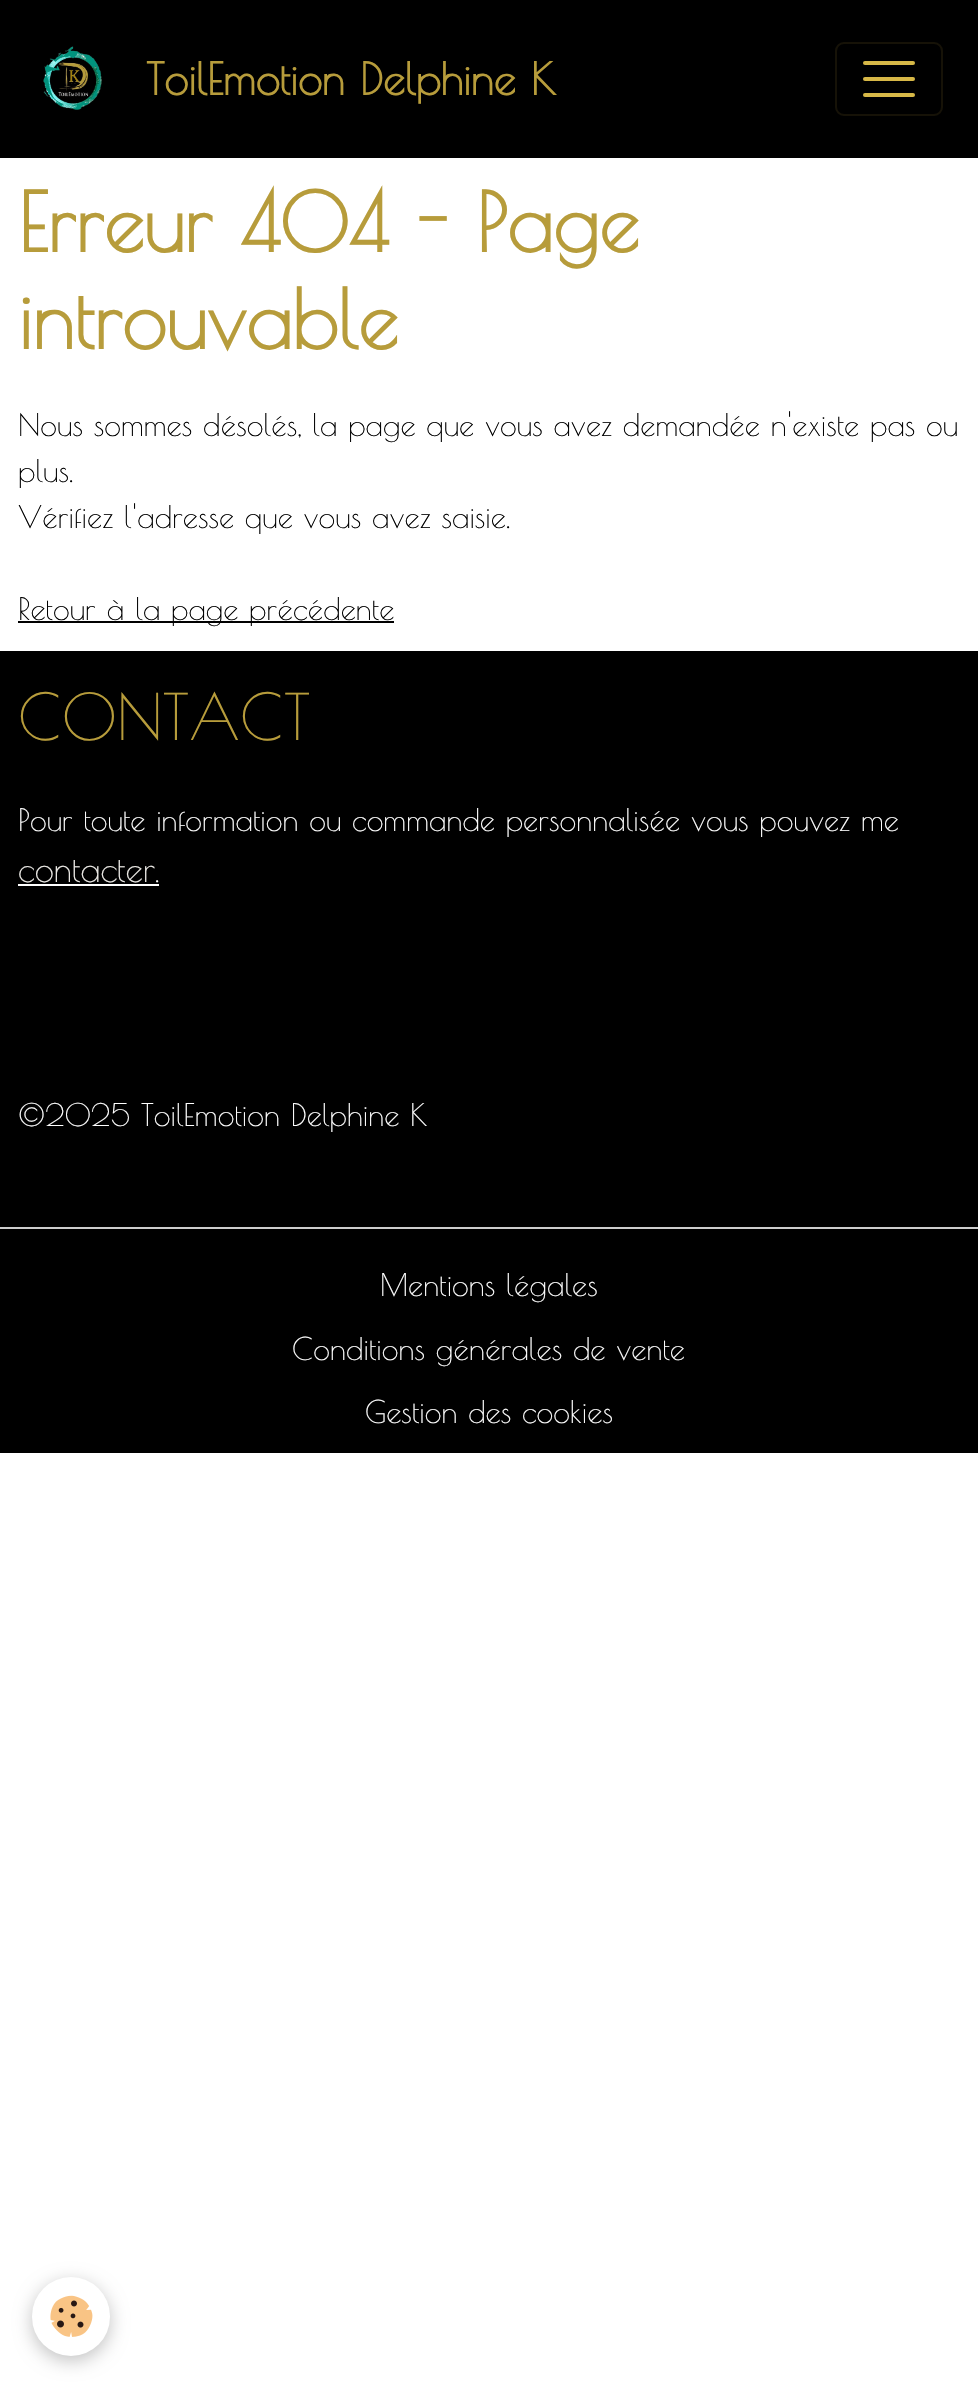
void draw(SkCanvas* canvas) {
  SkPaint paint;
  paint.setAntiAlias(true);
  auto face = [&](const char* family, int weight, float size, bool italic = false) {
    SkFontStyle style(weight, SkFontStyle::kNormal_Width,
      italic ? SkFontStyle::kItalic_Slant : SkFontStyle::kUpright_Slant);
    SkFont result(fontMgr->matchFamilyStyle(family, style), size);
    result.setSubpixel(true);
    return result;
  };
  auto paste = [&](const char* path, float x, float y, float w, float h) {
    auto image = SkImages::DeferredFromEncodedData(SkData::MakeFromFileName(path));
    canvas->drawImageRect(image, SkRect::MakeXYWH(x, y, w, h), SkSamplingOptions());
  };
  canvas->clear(0xffffffff);
  paint.setColor(0xff000000);
  canvas->drawRect(SkRect::MakeXYWH(0, 0, 978, 158), paint);
  paste("img/1.png", 43, 46, 59, 64);
  paint.setStroke(true);
  paint.setStrokeWidth(2);
  paint.setColor(0xff161207);
  canvas->drawRoundRect(SkRect::MakeXYWH(836, 43, 106, 72), 8, 8, paint);
  paint.setStroke(false);
  paint.setColor(0xffd7b847);
  canvas->drawRoundRect(SkRect::MakeXYWH(863, 61, 52, 4), 2, 2, paint);
  canvas->drawRoundRect(SkRect::MakeXYWH(863, 77, 52, 4), 2, 2, paint);
  canvas->drawRoundRect(SkRect::MakeXYWH(863, 93, 52, 4), 2, 2, paint);
  {
    const struct { float x, y, w, h; SkColor color; } items[] = {
      {18, 621, 376, 2, 0xff000000},
      {0, 651, 978, 802, 0xff000000},
      {18, 884, 141, 2, 0xffffffff},
      {0, 1227, 978, 2, 0xffcccccc},
    };
    for (auto [x, y, w, h, color] : items) {
      paint.setColor(color);
      canvas->drawRect(SkRect::MakeXYWH(x, y, w, h), paint);
    }
  }
  paint.setColor(0x3d000000);
  paint.setMaskFilter(SkMaskFilter::MakeBlur(kNormal_SkBlurStyle, 9));
  canvas->drawRoundRect(SkRect::MakeXYWH(32, 2282, 78, 79), 39, 39, paint);
  paint.setMaskFilter(nullptr);
  paint.setColor(0xffffffff);
  canvas->drawRoundRect(SkRect::MakeXYWH(32, 2277, 78, 79), 39, 39, paint);
  paste("img/2.png", 50, 2295, 43, 42);
  auto f0 = face("Poiret One", 700, 43.75f);
  paint.setColor(0xffb79c3b);
  canvas->drawString("ToilEmotion Delphine K", 146, 95, f0, paint);
  auto f1 = face("Poiret One", 700, 80.5f);
  canvas->drawString("Erreur 404 - Page", 18, 252, f1, paint);
  canvas->drawString("introuvable", 18, 349, f1, paint);
  auto f2 = face("Poiret One", 400, 30.6f);
  paint.setColor(0xff000000);
  {
    const struct { const char* s; float x, y; } items[] = {
      {"Nous sommes désolés, la page que vous avez demandée n'existe pas ou", 18, 436},
      {"plus.", 18, 482},
      {"Vérifiez l'adresse que vous avez saisie.", 18, 528},
      {"Retour à la page précédente", 18, 620},
    };
    for (auto [s, x, y] : items) {
      canvas->drawString(s, x, y, f2, paint);
    }
  }
  auto f3 = face("Poiret One", 400, 63);
  paint.setColor(0xffb79c3b);
  canvas->drawString("CONTACT", 18, 740, f3, paint);
  paint.setColor(0xffffffff);
  canvas->drawString("Pour toute information ou commande personnalisée vous pouvez me", 18, 831, f2, paint);
  auto f4 = face("Poiret One", 400, 35);
  paint.setColor(0xffeceae6);
  canvas->drawString("contacter", 18, 882, f4, paint);
  paint.setColor(0xffffffff);
  {
    const struct { const char* s; float x, y; } items[] = {
      {".", 155, 882},
      {"©2025 ToilEmotion Delphine K", 18, 1126},
      {"Mentions légales", 380, 1296},
      {"Conditions générales de vente", 292, 1360},
      {"Gestion des cookies", 365, 1423},
    };
    for (auto [s, x, y] : items) {
      canvas->drawString(s, x, y, f2, paint);
    }
  }
}
